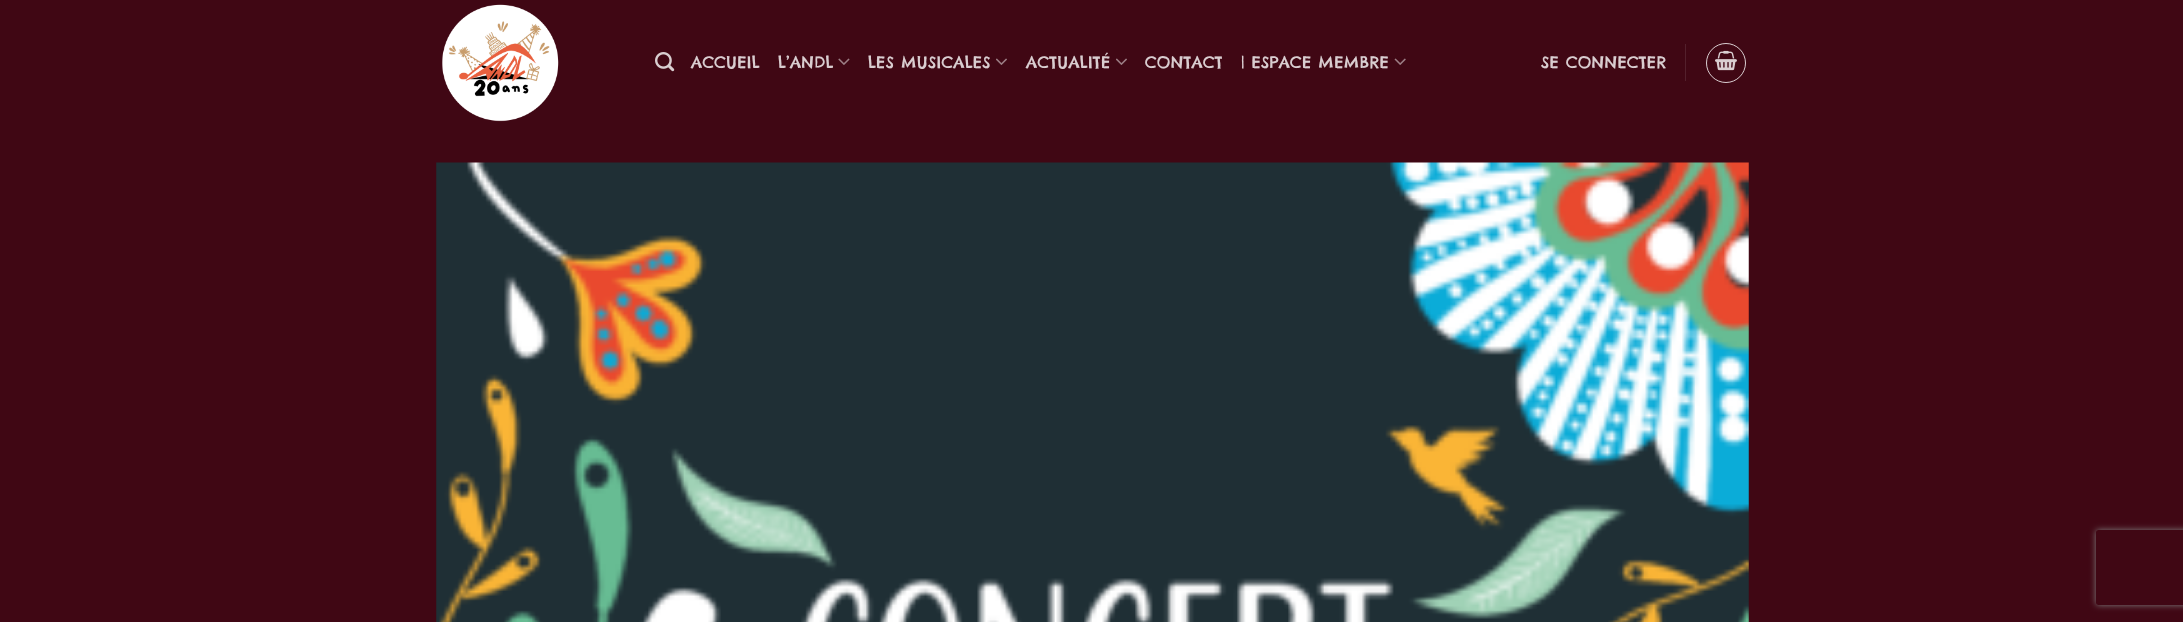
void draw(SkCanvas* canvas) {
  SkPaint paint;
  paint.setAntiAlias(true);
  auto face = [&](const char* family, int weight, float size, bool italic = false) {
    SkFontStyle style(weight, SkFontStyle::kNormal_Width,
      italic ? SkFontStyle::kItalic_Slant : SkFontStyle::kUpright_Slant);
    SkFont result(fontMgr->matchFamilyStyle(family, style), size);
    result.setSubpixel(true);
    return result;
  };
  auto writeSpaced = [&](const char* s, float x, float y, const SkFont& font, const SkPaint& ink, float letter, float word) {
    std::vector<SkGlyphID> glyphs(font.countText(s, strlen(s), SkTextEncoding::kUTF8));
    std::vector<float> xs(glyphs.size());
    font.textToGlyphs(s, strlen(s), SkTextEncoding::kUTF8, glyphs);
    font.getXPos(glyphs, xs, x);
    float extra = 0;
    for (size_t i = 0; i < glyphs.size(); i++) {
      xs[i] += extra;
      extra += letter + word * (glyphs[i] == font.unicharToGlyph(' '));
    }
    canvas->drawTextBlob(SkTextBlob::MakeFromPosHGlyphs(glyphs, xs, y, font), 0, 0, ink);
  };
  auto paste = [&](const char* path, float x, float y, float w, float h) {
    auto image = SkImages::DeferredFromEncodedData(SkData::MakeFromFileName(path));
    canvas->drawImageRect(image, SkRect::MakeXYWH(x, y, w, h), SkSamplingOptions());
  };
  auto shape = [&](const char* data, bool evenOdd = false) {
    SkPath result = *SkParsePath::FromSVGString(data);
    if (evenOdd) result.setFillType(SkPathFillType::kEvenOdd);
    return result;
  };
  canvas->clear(0xff400714);
  paste("img/1.png", 442, 4, 117, 118);
  paste("img/2.png", 655, 52, 20, 20);
  paste("img/3.png", 838, 58, 12, 7);
  paste("img/4.png", 996, 58, 11, 7);
  paste("img/4.png", 1116, 58, 11, 7);
  paste("img/5.png", 1394, 58, 12, 7);
  paint.setColor(0xff53202c);
  canvas->drawRect(SkRect::MakeXYWH(1685, 44, 1, 37), paint);
  paint.setStroke(true);
  paint.setStrokeWidth(1);
  paint.setColor(0xffd9cdd0);
  canvas->drawCircle(1726, 63, 19.5f, paint);
  paste("img/6.png", 1715, 50, 22, 21);
  paste("img/7.png", 436, 162, 1313, 460);
  canvas->save();
  canvas->clipPath(shape("M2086 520H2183V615H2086ZM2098.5 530H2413.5C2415 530 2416 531 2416 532.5V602.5C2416 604 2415 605 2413.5 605H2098.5C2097 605 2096 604 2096 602.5V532.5C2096 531 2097 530 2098.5 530Z", true), true);
  paint.setStroke(false);
  paint.setColor(0xff808080);
  paint.setMaskFilter(SkMaskFilter::MakeBlur(kNormal_SkBlurStyle, 3));
  canvas->drawRoundRect(SkRect::MakeXYWH(2096, 530, 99, 75), 2.5f, 2.5f, paint);
  paint.setMaskFilter(nullptr);
  canvas->restore();
  auto f0 = face("Chelsea Market", 400, 16);
  paint.setColor(0xffd9cdd0);
  {
    const struct { const char* s; float x, y; } items[] = {
      {"ACCUEIL", 691, 68},
      {"L’ANDL", 778, 68},
      {"LES MUSICALES", 868, 68},
      {"ACTUALITÉ", 1026, 68},
      {"CONTACT", 1145, 68},
      {"| ESPACE MEMBRE", 1241, 68},
      {"SE CONNECTER", 1541, 68},
    };
    for (auto [s, x, y] : items) {
      writeSpaced(s, x, y, f0, paint, 0.3f, 0);
    }
  }
}
